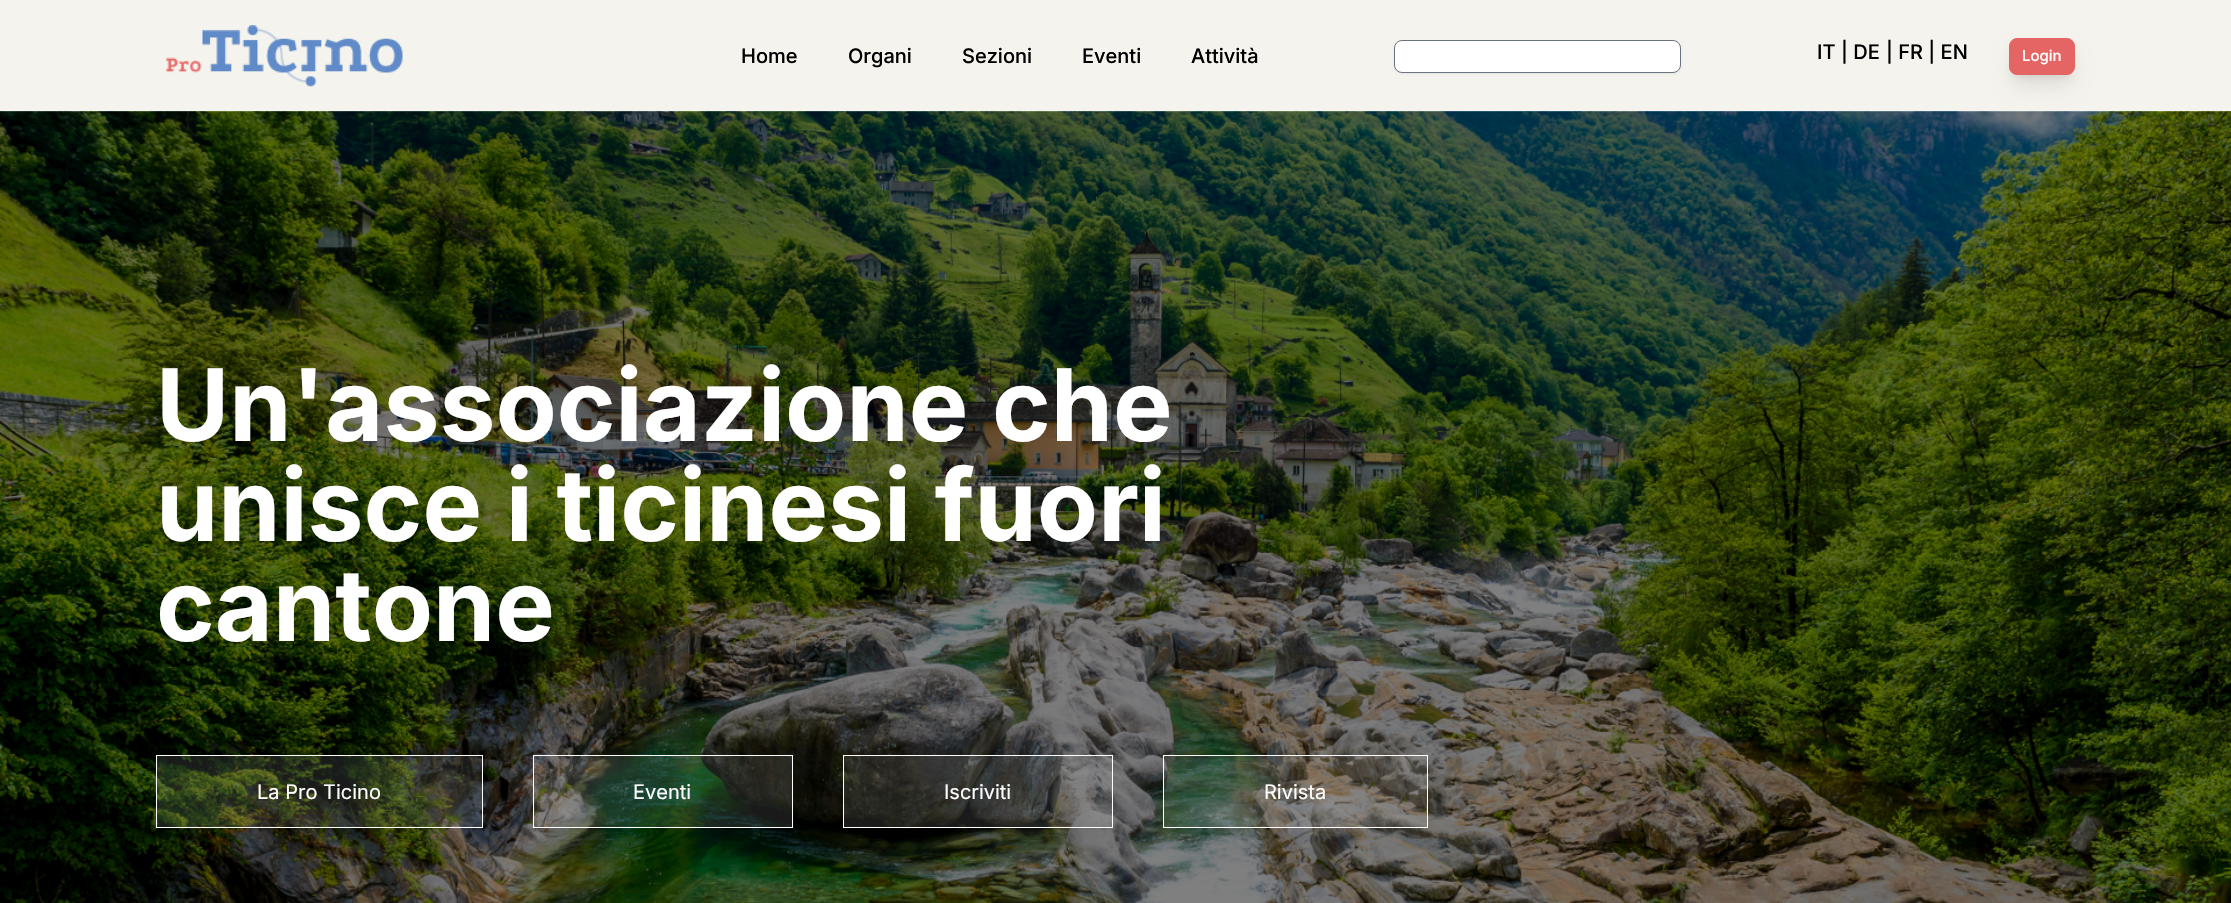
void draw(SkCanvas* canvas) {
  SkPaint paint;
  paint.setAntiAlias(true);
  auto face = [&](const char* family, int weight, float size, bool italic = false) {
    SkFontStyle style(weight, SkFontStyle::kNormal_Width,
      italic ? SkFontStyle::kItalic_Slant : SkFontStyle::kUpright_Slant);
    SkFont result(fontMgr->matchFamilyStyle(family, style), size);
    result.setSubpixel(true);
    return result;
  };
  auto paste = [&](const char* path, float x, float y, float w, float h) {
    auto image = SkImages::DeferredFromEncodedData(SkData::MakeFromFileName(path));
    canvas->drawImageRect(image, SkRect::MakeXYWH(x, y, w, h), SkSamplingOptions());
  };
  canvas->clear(0xfff5f3ed);
  paste("img/1.png", 166, 25, 237, 62);
  paint.setColor(0x0d000000);
  paint.setMaskFilter(SkMaskFilter::MakeBlur(kNormal_SkBlurStyle, 1));
  canvas->drawRoundRect(SkRect::MakeXYWH(1394, 41, 287, 33), 8, 8, paint);
  paint.setMaskFilter(nullptr);
  paint.setColor(0xffffffff);
  canvas->drawRoundRect(SkRect::MakeXYWH(1394.5f, 40.5f, 286, 32), 7.5f, 7.5f, paint);
  paint.setStroke(true);
  paint.setStrokeWidth(1);
  paint.setColor(0xff6b7280);
  canvas->drawRoundRect(SkRect::MakeXYWH(1394.5f, 40.5f, 286, 32), 7.5f, 7.5f, paint);
  paint.setStroke(false);
  paint.setColor(0x1a000000);
  paint.setMaskFilter(SkMaskFilter::MakeBlur(kNormal_SkBlurStyle, 4));
  canvas->drawRoundRect(SkRect::MakeXYWH(2014, 48, 56, 27), 2.5f, 2.5f, paint);
  paint.setMaskFilter(nullptr);
  paste("img/2.png", 0, 111, 2231, 792);
  paint.setMaskFilter(SkMaskFilter::MakeBlur(kNormal_SkBlurStyle, 9.5f));
  canvas->drawRoundRect(SkRect::MakeXYWH(2013, 54, 58, 30), 4, 4, paint);
  paint.setMaskFilter(nullptr);
  paint.setColor(0xffe56464);
  canvas->drawRoundRect(SkRect::MakeXYWH(2009.5f, 38.5f, 65, 36), 7.5f, 7.5f, paint);
  paint.setStroke(true);
  canvas->drawRoundRect(SkRect::MakeXYWH(2009.5f, 38.5f, 65, 36), 7.5f, 7.5f, paint);
  paint.setStroke(false);
  paint.setColor(0x1affffff);
  canvas->drawRect(SkRect::MakeXYWH(156.5f, 755.5f, 326, 72), paint);
  paint.setStroke(true);
  paint.setColor(0xffffffff);
  canvas->drawRect(SkRect::MakeXYWH(156.5f, 755.5f, 326, 72), paint);
  paint.setStroke(false);
  paint.setColor(0x1affffff);
  canvas->drawRect(SkRect::MakeXYWH(533.5f, 755.5f, 259, 72), paint);
  paint.setStroke(true);
  paint.setColor(0xffffffff);
  canvas->drawRect(SkRect::MakeXYWH(533.5f, 755.5f, 259, 72), paint);
  paint.setStroke(false);
  paint.setColor(0x1affffff);
  canvas->drawRect(SkRect::MakeXYWH(843.5f, 755.5f, 269, 72), paint);
  paint.setStroke(true);
  paint.setColor(0xffffffff);
  canvas->drawRect(SkRect::MakeXYWH(843.5f, 755.5f, 269, 72), paint);
  paint.setStroke(false);
  paint.setColor(0x1affffff);
  canvas->drawRect(SkRect::MakeXYWH(1163.5f, 755.5f, 264, 72), paint);
  paint.setStroke(true);
  paint.setColor(0xffffffff);
  canvas->drawRect(SkRect::MakeXYWH(1163.5f, 755.5f, 264, 72), paint);
  auto f0 = face("Inter", 500, 20);
  paint.setStroke(false);
  paint.setColor(0xff000000);
  {
    const struct { const char* s; float x, y; } items[] = {
      {"Home", 741, 63},
      {"Organi", 848, 63},
      {"Sezioni", 962, 63},
      {"Eventi", 1082, 63},
      {"Attività", 1191, 63},
      {"IT", 1817, 59},
      {"| DE", 1841, 59},
      {"| FR | EN", 1886, 59},
    };
    for (auto [s, x, y] : items) {
      canvas->drawString(s, x, y, f0, paint);
    }
  }
  auto f1 = face("Inter", 500, 15);
  paint.setColor(0xffffffff);
  canvas->drawString("Login", 2022, 61, f1, paint);
  auto f2 = face("Inter", 700, 100);
  {
    const struct { const char* s; float x, y; } items[] = {
      {"Un'associazione che", 156, 441},
      {"unisce i ticinesi fuori", 156, 541},
      {"cantone", 156, 641},
    };
    for (auto [s, x, y] : items) {
      canvas->drawString(s, x, y, f2, paint);
    }
  }
  auto f3 = face("Inter", 400, 20);
  {
    const struct { const char* s; float x, y; } items[] = {
      {"La Pro Ticino", 257, 799},
      {"Eventi", 633, 799},
      {"Iscriviti", 944, 799},
      {"Rivista", 1264, 799},
    };
    for (auto [s, x, y] : items) {
      canvas->drawString(s, x, y, f3, paint);
    }
  }
}
